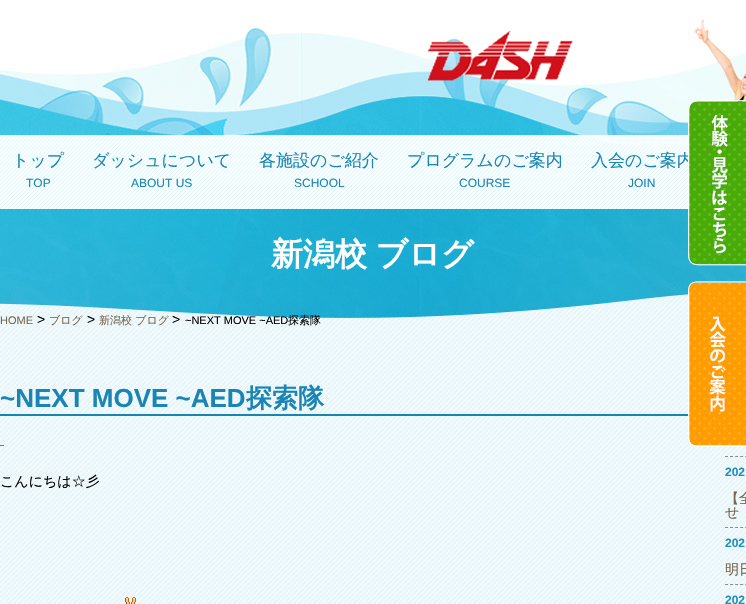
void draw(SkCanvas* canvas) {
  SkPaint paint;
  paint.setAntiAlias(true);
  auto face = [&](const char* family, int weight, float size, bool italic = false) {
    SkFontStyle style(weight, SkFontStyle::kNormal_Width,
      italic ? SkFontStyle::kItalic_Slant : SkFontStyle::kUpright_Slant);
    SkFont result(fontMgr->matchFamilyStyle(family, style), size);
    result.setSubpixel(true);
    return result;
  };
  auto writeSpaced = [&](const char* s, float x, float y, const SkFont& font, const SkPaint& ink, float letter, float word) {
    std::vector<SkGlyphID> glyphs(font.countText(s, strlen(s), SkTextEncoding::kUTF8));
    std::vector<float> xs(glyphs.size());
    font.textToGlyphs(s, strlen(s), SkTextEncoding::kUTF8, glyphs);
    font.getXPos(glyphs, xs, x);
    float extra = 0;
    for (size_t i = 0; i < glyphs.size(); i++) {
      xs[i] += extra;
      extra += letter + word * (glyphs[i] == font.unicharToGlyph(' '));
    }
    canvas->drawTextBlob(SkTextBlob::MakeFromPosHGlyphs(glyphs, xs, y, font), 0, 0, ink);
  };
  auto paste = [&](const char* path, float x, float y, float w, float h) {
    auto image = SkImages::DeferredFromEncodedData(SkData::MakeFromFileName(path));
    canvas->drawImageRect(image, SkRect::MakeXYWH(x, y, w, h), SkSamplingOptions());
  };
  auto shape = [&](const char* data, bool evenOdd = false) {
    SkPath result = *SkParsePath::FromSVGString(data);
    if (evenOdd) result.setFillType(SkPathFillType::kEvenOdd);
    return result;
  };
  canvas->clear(0xffffffff);
  paste("img/1.png", 0, 19, 746, 585);
  paste("img/2.png", 428, 31, 145, 50);
  paint.setColor(0xff1885b2);
  canvas->drawRect(SkRect::MakeXYWH(0, 414, 690, 2), paint);
  paste("img/4.png", 688, 281, 58, 166);
  paste("img/5.png", 0, 135, 690, 74);
  paint.setColor(0xff2d91bb);
  canvas->drawRect(SkRect::MakeXYWH(0, 445, 4, 1), paint);
  paste("img/6.png", 125, 597, 11, 7);
  paint.setStroke(true);
  paint.setStrokeWidth(1);
  paint.setColor(0xff8c8c8c);
  paint.setPathEffect(SkDashPathEffect::Make({{3, 2.05f}}, 0));
  canvas->drawPath(shape("M725 456.5H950"), paint);
  paint.setPathEffect(nullptr);
  paint.setPathEffect(SkDashPathEffect::Make({{3, 2.05f}}, 0));
  canvas->drawPath(shape("M725 527.5H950M725 584.5H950"), paint);
  paint.setPathEffect(nullptr);
  auto f0 = face("WenQuanYi Zen Hei", 500, 17);
  paint.setStroke(false);
  paint.setColor(0xff1885b4);
  canvas->drawString("トップ", 12, 166, f0, paint);
  auto f1 = face("Liberation Sans", 400, 12);
  canvas->drawString("TOP", 26, 187, f1, paint);
  canvas->drawString("ダッシュについて", 92, 166, f0, paint);
  canvas->drawString("ABOUT US", 131, 187, f1, paint);
  canvas->drawString("各施設のご紹介", 259, 166, f0, paint);
  canvas->drawString("SCHOOL", 294, 187, f1, paint);
  canvas->drawString("プログラムのご案内", 407, 166, f0, paint);
  canvas->drawString("COURSE", 459, 187, f1, paint);
  canvas->drawString("入会のご案内", 591, 166, f0, paint);
  paste("img/3.png", 688, 100, 58, 166);
  canvas->drawString("JOIN", 628, 187, f1, paint);
  auto f2 = face("WenQuanYi Zen Hei", 700, 32);
  paint.setColor(0xffffffff);
  writeSpaced("新潟校 ブログ", 271, 265, f2, paint, 0, -1);
  auto f3 = face("Liberation Sans", 400, 11);
  paint.setColor(0xff75664c);
  canvas->drawString("HOME", 0, 324, f3, paint);
  auto f4 = face("Liberation Sans", 400, 14);
  paint.setColor(0xff000000);
  canvas->drawString(">", 37, 324, f4, paint);
  auto f5 = face("WenQuanYi Zen Hei", 500, 11);
  paint.setColor(0xff75664c);
  canvas->drawString("ブログ", 49, 324, f5, paint);
  paint.setColor(0xff000000);
  canvas->drawString(">", 87, 324, f4, paint);
  paint.setColor(0xff75664c);
  canvas->drawString("新潟校 ブログ", 99, 324, f5, paint);
  paint.setColor(0xff000000);
  canvas->drawString(">", 172, 324, f4, paint);
  canvas->drawString("~NEXT MOVE ~AED", 185, 324, f3, paint);
  canvas->drawString("探索隊", 288, 324, f5, paint);
  auto f6 = face("Liberation Sans", 700, 26);
  paint.setColor(0xff1885b4);
  canvas->drawString("~NEXT MOVE ~AED", 0, 407, f6, paint);
  auto f7 = face("WenQuanYi Zen Hei", 700, 26);
  canvas->drawString("探索隊", 246, 407, f7, paint);
  auto f8 = face("WenQuanYi Zen Hei", 500, 14);
  paint.setColor(0xff000000);
  canvas->drawString("こんにちは☆彡", 0, 486, f8, paint);
  auto f9 = face("Liberation Sans", 700, 12);
  paint.setColor(0xff1b91bc);
  canvas->drawString("202", 725, 476, f9, paint);
  paint.setColor(0xff75664c);
  canvas->drawString("【全", 725, 503, f8, paint);
  canvas->drawString("せ", 725, 517, f8, paint);
  paint.setColor(0xff1b91bc);
  canvas->drawString("202", 725, 547, f9, paint);
  paint.setColor(0xff75664c);
  canvas->drawString("明日", 725, 574, f8, paint);
  paint.setColor(0xff1b91bc);
  canvas->drawString("202", 725, 604, f9, paint);
}
